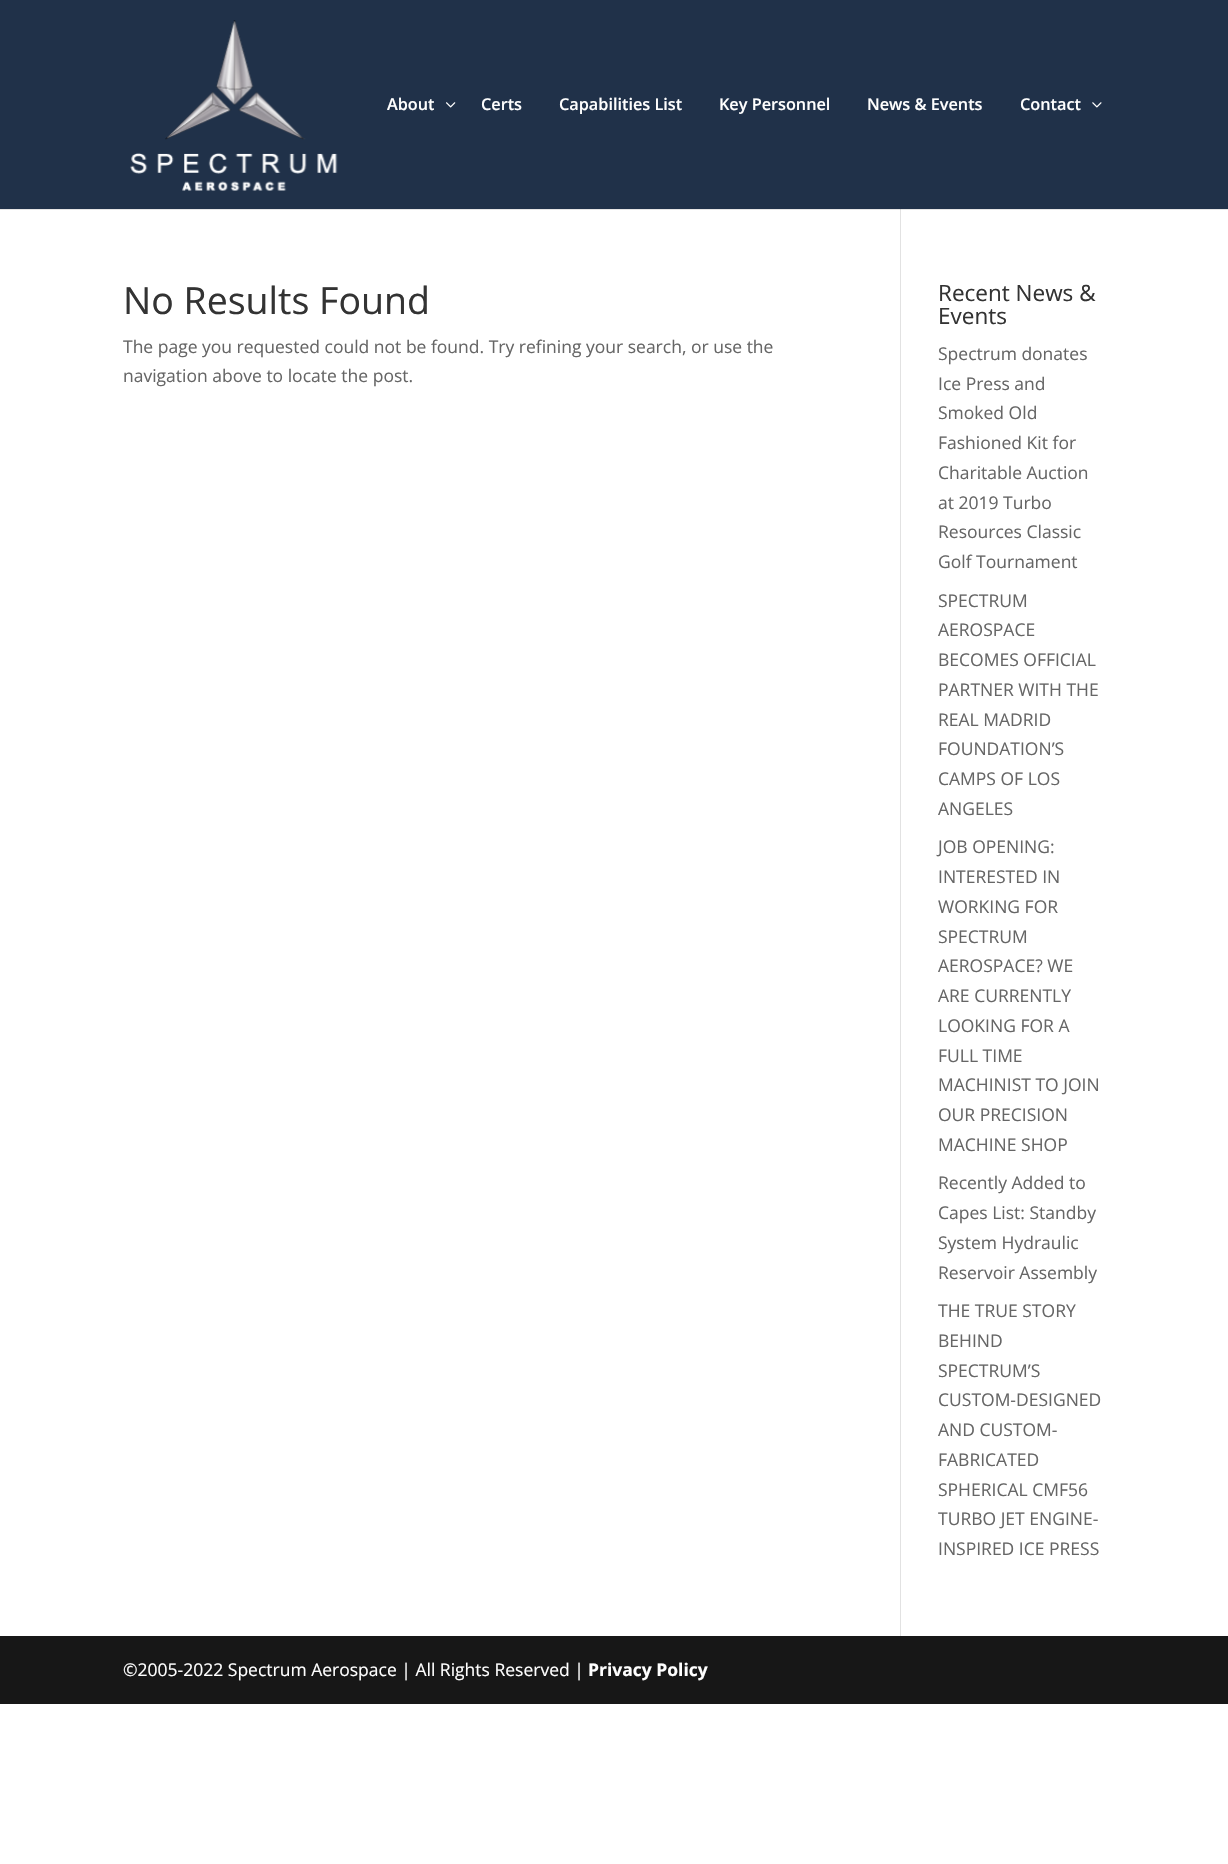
void draw(SkCanvas* canvas) {
  SkPaint paint;
  paint.setAntiAlias(true);
  auto face = [&](const char* family, int weight, float size, bool italic = false) {
    SkFontStyle style(weight, SkFontStyle::kNormal_Width,
      italic ? SkFontStyle::kItalic_Slant : SkFontStyle::kUpright_Slant);
    SkFont result(fontMgr->matchFamilyStyle(family, style), size);
    result.setSubpixel(true);
    return result;
  };
  auto paste = [&](const char* path, float x, float y, float w, float h) {
    auto image = SkImages::DeferredFromEncodedData(SkData::MakeFromFileName(path));
    canvas->drawImageRect(image, SkRect::MakeXYWH(x, y, w, h), SkSamplingOptions());
  };
  auto shape = [&](const char* data, bool evenOdd = false) {
    SkPath result = *SkParsePath::FromSVGString(data);
    if (evenOdd) result.setFillType(SkPathFillType::kEvenOdd);
    return result;
  };
  canvas->clear(0xffffffff);
  paint.setColor(0xffe2e2e2);
  canvas->drawRect(SkRect::MakeXYWH(900, 209, 1, 1427), paint);
  paint.setColor(0x1a000000);
  canvas->drawPath(shape("M0 209V210H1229V1V209Z"), paint);
  paint.setColor(0xff203149);
  canvas->drawRect(SkRect::MakeXYWH(0, 0, 1228, 209), paint);
  paste("img/1.png", 130, 20, 208, 171);
  paste("img/2.png", 446, 102, 10, 6);
  paste("img/3.png", 1092, 102, 10, 6);
  paint.setColor(0xff171717);
  canvas->drawRect(SkRect::MakeXYWH(0, 1636, 1228, 68), paint);
  auto f0 = face("Open Sans", 600, 16.25f);
  paint.setColor(0xffffffff);
  {
    const struct { const char* s; float x, y; } items[] = {
      {"About", 387, 110},
      {"Certs", 481, 110},
      {"Capabilities List", 559, 110},
      {"Key Personnel", 719, 110},
      {"News & Events", 867, 110},
      {"Contact", 1020, 110},
    };
    for (auto [s, x, y] : items) {
      canvas->drawString(s, x, y, f0, paint);
    }
  }
  auto f1 = face("Open Sans", 400, 37.5f);
  paint.setColor(0xff333333);
  canvas->drawString("No Results Found", 123, 314, f1, paint);
  auto f2 = face("Open Sans", 400, 17.5f);
  paint.setColor(0xff666666);
  canvas->drawString("The page you requested could not be found. Try refining your search, or use the", 123, 353, f2, paint);
  canvas->drawString("navigation above to locate the post.", 123, 382, f2, paint);
  auto f3 = face("Open Sans", 400, 22.5f);
  paint.setColor(0xff333333);
  canvas->drawString("Recent News &", 938, 301, f3, paint);
  canvas->drawString("Events", 938, 324, f3, paint);
  paint.setColor(0xff666666);
  {
    const struct { const char* s; float x, y; } items[] = {
      {"Spectrum donates", 938, 360},
      {"Ice Press and", 938, 390},
      {"Smoked Old", 938, 419},
      {"Fashioned Kit for", 938, 449},
      {"Charitable Auction", 938, 479},
      {"at 2019 Turbo", 938, 509},
      {"Resources Classic", 938, 538},
      {"Golf Tournament", 938, 568},
      {"SPECTRUM", 938, 607},
      {"AEROSPACE", 938, 636},
      {"BECOMES OFFICIAL", 938, 666},
      {"PARTNER WITH THE", 938, 696},
      {"REAL MADRID", 938, 726},
      {"FOUNDATION’S", 938, 755},
      {"CAMPS OF LOS", 938, 785},
      {"ANGELES", 938, 815},
      {"JOB OPENING:", 938, 853},
      {"INTERESTED IN", 938, 883},
      {"WORKING FOR", 938, 913},
      {"SPECTRUM", 938, 943},
      {"AEROSPACE? WE", 938, 972},
      {"ARE CURRENTLY", 938, 1002},
      {"LOOKING FOR A", 938, 1032},
      {"FULL TIME", 938, 1062},
      {"MACHINIST TO JOIN", 938, 1091},
      {"OUR PRECISION", 938, 1121},
      {"MACHINE SHOP", 938, 1151},
      {"Recently Added to", 938, 1189},
      {"Capes List: Standby", 938, 1219},
      {"System Hydraulic", 938, 1249},
      {"Reservoir Assembly", 938, 1279},
      {"THE TRUE STORY", 938, 1317},
      {"BEHIND", 938, 1347},
      {"SPECTRUM’S", 938, 1377},
      {"CUSTOM-DESIGNED", 938, 1406},
      {"AND CUSTOM-", 938, 1436},
      {"FABRICATED", 938, 1466},
      {"SPHERICAL CMF56", 938, 1496},
      {"TURBO JET ENGINE-", 938, 1525},
      {"INSPIRED ICE PRESS", 938, 1555},
    };
    for (auto [s, x, y] : items) {
      canvas->drawString(s, x, y, f2, paint);
    }
  }
  paint.setColor(0xffffffff);
  canvas->drawString("©2005-2022 Spectrum Aerospace | All Rights Reserved |", 123, 1676, f2, paint);
  auto f4 = face("Open Sans", 700, 17.5f);
  canvas->drawString("Privacy Policy", 588, 1676, f4, paint);
}
